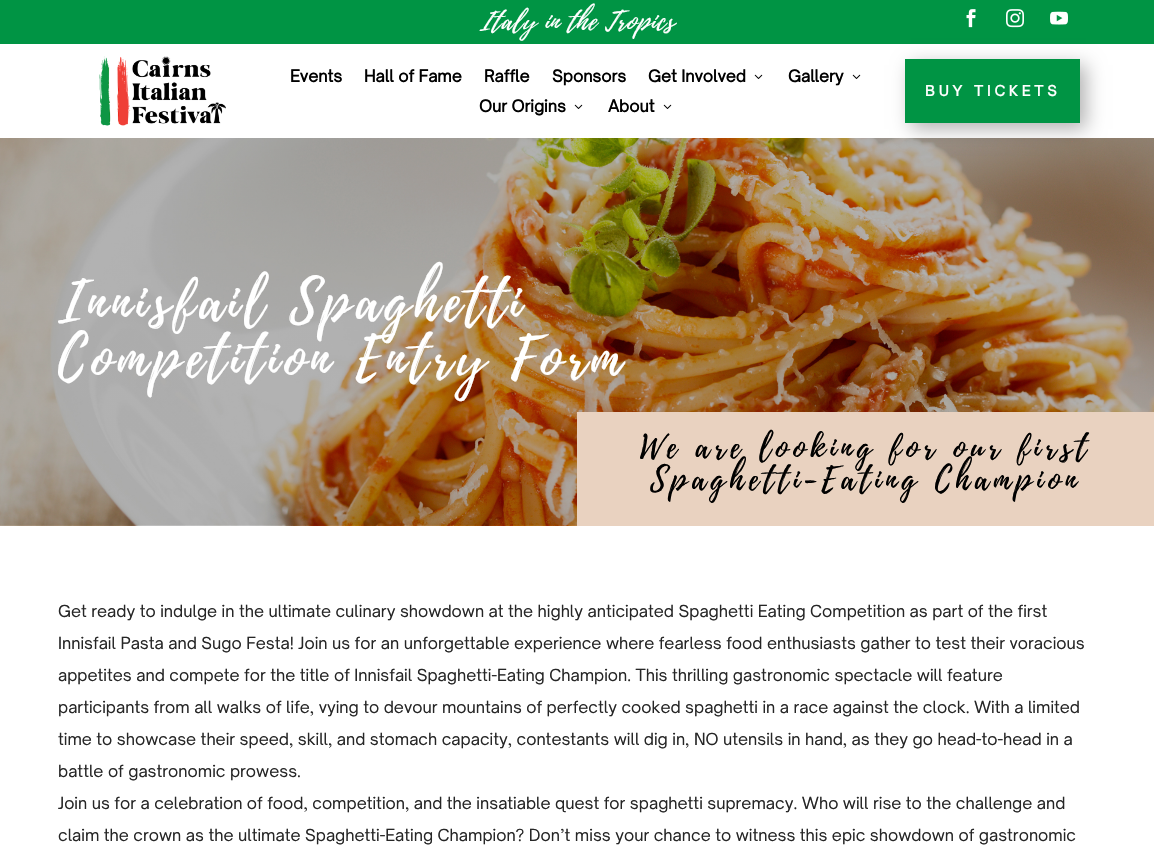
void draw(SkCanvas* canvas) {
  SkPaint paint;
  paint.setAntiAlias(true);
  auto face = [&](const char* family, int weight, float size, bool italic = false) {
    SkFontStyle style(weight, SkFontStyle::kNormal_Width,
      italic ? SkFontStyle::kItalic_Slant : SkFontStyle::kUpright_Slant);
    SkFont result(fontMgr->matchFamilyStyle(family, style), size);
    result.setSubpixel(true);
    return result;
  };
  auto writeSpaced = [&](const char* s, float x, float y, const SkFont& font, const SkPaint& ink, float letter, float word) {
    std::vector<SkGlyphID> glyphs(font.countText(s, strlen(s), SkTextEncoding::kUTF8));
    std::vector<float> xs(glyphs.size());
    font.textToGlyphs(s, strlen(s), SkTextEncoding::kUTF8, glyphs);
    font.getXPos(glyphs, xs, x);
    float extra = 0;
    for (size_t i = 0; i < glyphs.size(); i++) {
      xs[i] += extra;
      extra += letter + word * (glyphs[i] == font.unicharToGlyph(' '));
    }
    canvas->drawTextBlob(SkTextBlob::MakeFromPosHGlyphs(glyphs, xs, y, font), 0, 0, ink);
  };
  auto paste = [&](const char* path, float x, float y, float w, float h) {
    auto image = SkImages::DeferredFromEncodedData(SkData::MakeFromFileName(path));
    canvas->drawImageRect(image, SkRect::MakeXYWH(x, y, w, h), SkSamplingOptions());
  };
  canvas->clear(0xffffffff);
  paint.setColor(0xff009444);
  canvas->drawRect(SkRect::MakeXYWH(0, 0, 1154, 44), paint);
  paste("img/1.png", 966, 9, 10, 19);
  paste("img/2.png", 1006, 9, 18, 19);
  paste("img/3.png", 1050, 11, 18, 14);
  paste("img/4.png", 99, 56, 127, 70);
  paste("img/5.png", 754, 74, 9, 5);
  paste("img/5.png", 852, 74, 9, 5);
  paste("img/5.png", 574, 104, 9, 5);
  paste("img/5.png", 663, 104, 9, 5);
  paste("img/6.png", 0, 138, 1154, 388);
  paint.setColor(0x4d000000);
  paint.setMaskFilter(SkMaskFilter::MakeBlur(kNormal_SkBlurStyle, 9));
  canvas->drawRect(SkRect::MakeXYWH(911, 65, 175, 64), paint);
  paint.setMaskFilter(nullptr);
  paint.setColor(0xff009444);
  canvas->drawRect(SkRect::MakeXYWH(905, 59, 175, 64), paint);
  paint.setColor(0xffe9d2c0);
  canvas->drawRect(SkRect::MakeXYWH(577, 412, 577, 114), paint);
  auto f0 = face("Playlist", 400, 25, true);
  paint.setColor(0xffffffff);
  writeSpaced("Italy in the Tropics", 480, 29, f0, paint, 1, 0);
  auto f1 = face("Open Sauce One", 700, 16);
  paint.setColor(0xff000000);
  {
    const struct { const char* s; float x, y; } items[] = {
      {"Events", 290, 82},
      {"Hall of Fame", 364, 82},
      {"Raffle", 484, 82},
      {"Sponsors", 552, 82},
      {"Get Involved", 648, 82},
      {"Gallery", 788, 82},
      {"Our Origins", 479, 112},
      {"About", 608, 112},
    };
    for (auto [s, x, y] : items) {
      canvas->drawString(s, x, y, f1, paint);
    }
  }
  auto f2 = face("Open Sauce One", 700, 14);
  paint.setColor(0xffffffff);
  writeSpaced("BUY TICKETS", 925, 96, f2, paint, 4, 0);
  auto f3 = face("Playlist", 400, 56);
  writeSpaced("Innisfail Spaghetti", 58, 319, f3, paint, 5, 0);
  writeSpaced("Competition Entry Form", 58, 375, f3, paint, 5, 0);
  auto f4 = face("Playlist", 400, 32);
  paint.setColor(0xff000000);
  writeSpaced("We are looking for our first", 640, 457, f4, paint, 5, 0);
  writeSpaced("Spaghetti-Eating Champion", 650, 489, f4, paint, 5, 0);
  auto f5 = face("Open Sauce One", 400, 16);
  paint.setColor(0xff262626);
  {
    const struct { const char* s; float x, y; } items[] = {
      {"Get ready to indulge in the ultimate culinary showdown at the highly anticipated Spaghetti Eating Competition as part of the first", 58, 617},
      {"Innisfail Pasta and Sugo Festa! Join us for an unforgettable experience where fearless food enthusiasts gather to test their voracious", 58, 649},
      {"appetites and compete for the title of Innisfail Spaghetti-Eating Champion. This thrilling gastronomic spectacle will feature", 58, 681},
      {"participants from all walks of life, vying to devour mountains of perfectly cooked spaghetti in a race against the clock. With a limited", 58, 713},
      {"time to showcase their speed, skill, and stomach capacity, contestants will dig in, NO utensils in hand, as they go head-to-head in a", 58, 745},
      {"battle of gastronomic prowess.", 58, 777},
      {"Join us for a celebration of food, competition, and the insatiable quest for spaghetti supremacy. Who will rise to the challenge and", 58, 809},
      {"claim the crown as the ultimate Spaghetti-Eating Champion? Don’t miss your chance to witness this epic showdown of gastronomic", 58, 841},
    };
    for (auto [s, x, y] : items) {
      canvas->drawString(s, x, y, f5, paint);
    }
  }
}
